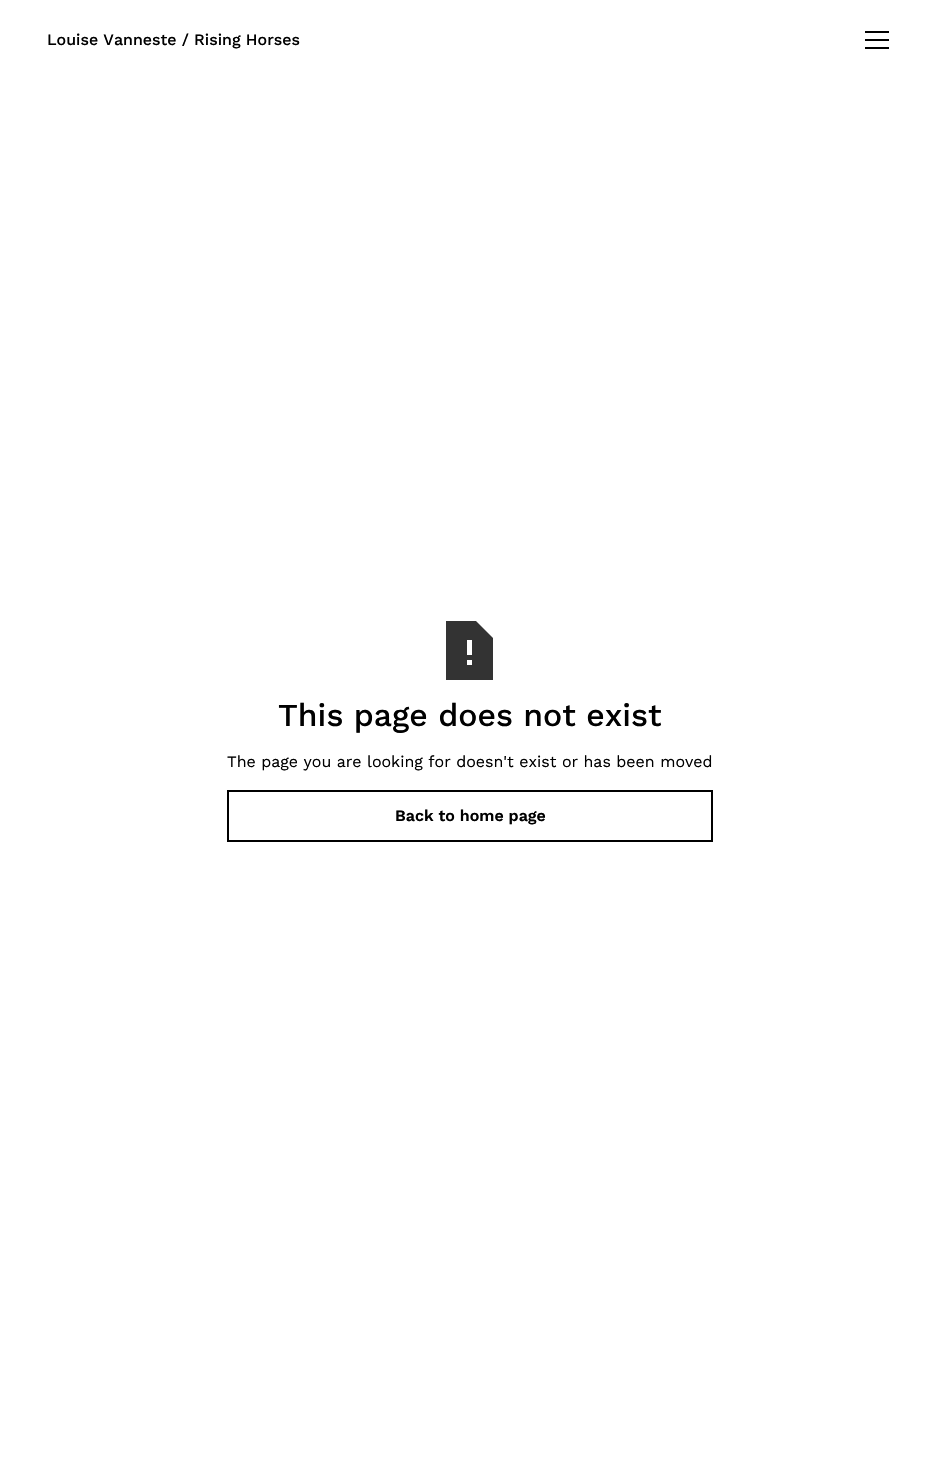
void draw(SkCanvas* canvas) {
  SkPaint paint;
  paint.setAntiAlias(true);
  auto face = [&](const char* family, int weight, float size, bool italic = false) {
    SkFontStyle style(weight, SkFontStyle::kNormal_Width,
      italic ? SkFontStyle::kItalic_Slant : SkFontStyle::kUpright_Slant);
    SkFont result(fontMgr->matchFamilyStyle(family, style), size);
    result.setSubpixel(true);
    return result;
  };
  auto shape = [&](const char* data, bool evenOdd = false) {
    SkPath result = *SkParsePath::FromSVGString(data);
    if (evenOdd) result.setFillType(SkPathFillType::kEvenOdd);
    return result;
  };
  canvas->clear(0xffffffff);
  {
    const struct { float x, y, w, h; SkColor color; } items[] = {
      {865, 31, 24, 2, 0xff000000},
      {865, 39, 24, 2, 0xff000000},
      {865, 47, 24, 2, 0xff000000},
    };
    for (auto [x, y, w, h, color] : items) {
      paint.setColor(color);
      canvas->drawRect(SkRect::MakeXYWH(x, y, w, h), paint);
    }
  }
  paint.setColor(0xff333333);
  canvas->drawPath(shape("M446 621H476L493 638V680H446ZM467 640H472V655H467ZM467 660H472V665H467Z", true), paint);
  paint.setStroke(true);
  paint.setStrokeWidth(2);
  paint.setColor(0xff000000);
  canvas->drawRect(SkRect::MakeXYWH(228, 791, 484, 50), paint);
  auto f0 = face("Work Sans", 500, 16);
  paint.setStroke(false);
  canvas->drawString("Louise Vanneste / Rising Horses", 47, 45, f0, paint);
  auto f1 = face("Work Sans", 500, 32);
  canvas->drawString("This page does not exist", 278, 726, f1, paint);
  auto f2 = face("Work Sans", 400, 16);
  canvas->drawString("The page you are looking for doesn't exist or has been moved", 227, 767, f2, paint);
  auto f3 = face("Work Sans", 600, 16);
  canvas->drawString("Back to home page", 395, 821, f3, paint);
}
